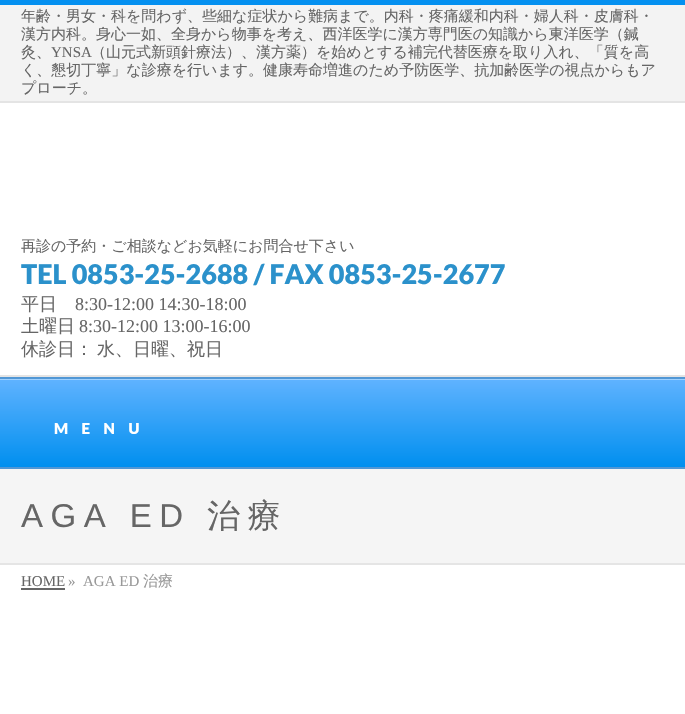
void draw(SkCanvas* canvas) {
  SkPaint paint;
  paint.setAntiAlias(true);
  auto face = [&](const char* family, int weight, float size, bool italic = false) {
    SkFontStyle style(weight, SkFontStyle::kNormal_Width,
      italic ? SkFontStyle::kItalic_Slant : SkFontStyle::kUpright_Slant);
    SkFont result(fontMgr->matchFamilyStyle(family, style), size);
    result.setSubpixel(true);
    return result;
  };
  auto writeSpaced = [&](const char* s, float x, float y, const SkFont& font, const SkPaint& ink, float letter, float word) {
    std::vector<SkGlyphID> glyphs(font.countText(s, strlen(s), SkTextEncoding::kUTF8));
    std::vector<float> xs(glyphs.size());
    font.textToGlyphs(s, strlen(s), SkTextEncoding::kUTF8, glyphs);
    font.getXPos(glyphs, xs, x);
    float extra = 0;
    for (size_t i = 0; i < glyphs.size(); i++) {
      xs[i] += extra;
      extra += letter + word * (glyphs[i] == font.unicharToGlyph(' '));
    }
    canvas->drawTextBlob(SkTextBlob::MakeFromPosHGlyphs(glyphs, xs, y, font), 0, 0, ink);
  };
  canvas->clear(0xffffffff);
  {
    const struct { float x, y, w, h; SkColor color; } items[] = {
      {0, 5, 685, 96, 0xfff3f3f3},
      {0, 0, 685, 5, 0xff0490f0},
      {0, 101, 685, 2, 0xffe4e4e4},
      {0, 375, 685, 2, 0xffe4e4e4},
    };
    for (auto [x, y, w, h, color] : items) {
      paint.setColor(color);
      canvas->drawRect(SkRect::MakeXYWH(x, y, w, h), paint);
    }
  }
  {
    const SkColor colors[] = {0xff61b3ff, 0xff008fef};
    const float stops[] = {0, 1};
    const SkPoint ends[] = {{343, 378}, {343, 467}};
    paint.setShader(SkGradientShader::MakeLinear(ends, colors, stops, 2, SkTileMode::kClamp));
    paint.setAlpha(255);
  }
  canvas->drawRect(SkRect::MakeXYWH(0, 380, 685, 87), paint);
  paint.setShader(nullptr);
  {
    const struct { float x, y, w, h; SkColor color; } items[] = {
      {0, 379, 685, 1, 0xff9fd1ff},
      {0, 377, 685, 2, 0xff5197d5},
      {0, 467, 685, 2, 0xff5197d5},
      {0, 469, 685, 94, 0xfff5f5f5},
      {0, 563, 685, 2, 0xffe5e5e5},
      {21, 588, 44, 2, 0xff666666},
    };
    for (auto [x, y, w, h, color] : items) {
      paint.setColor(color);
      canvas->drawRect(SkRect::MakeXYWH(x, y, w, h), paint);
    }
  }
  auto f0 = face("WenQuanYi Zen Hei", 500, 15);
  {
    const struct { const char* s; float x, y; } items[] = {
      {"年齢・男女・科を問わず、些細な症状から難病まで。内科・疼痛緩和内科・婦人科・皮膚科・", 21, 21},
      {"漢方内科。身心一如、全身から物事を考え、西洋医学に漢方専門医の知識から東洋医学（鍼", 21, 39},
      {"灸、", 21, 57},
    };
    for (auto [s, x, y] : items) {
      canvas->drawString(s, x, y, f0, paint);
    }
  }
  auto f1 = face("Liberation Serif", 400, 15);
  canvas->drawString("YNSA", 51, 57, f1, paint);
  {
    const struct { const char* s; float x, y; } items[] = {
      {"（山元式新頭針療法）、漢方薬）を始めとする補完代替医療を取り入れ、「質を高", 91, 57},
      {"く、懇切丁寧」な診療を行います。健康寿命増進のため予防医学、抗加齢医学の視点からもア", 21, 75},
      {"プローチ。", 21, 93},
      {"再診の予約・ご相談などお気軽にお問合せ下さい", 21, 251},
    };
    for (auto [s, x, y] : items) {
      canvas->drawString(s, x, y, f0, paint);
    }
  }
  auto f2 = face("Lato", 900, 27);
  paint.setColor(0xff2b91cb);
  canvas->drawString("TEL 0853-25-2688 / FAX 0853-25-2677", 21, 284, f2, paint);
  auto f3 = face("WenQuanYi Zen Hei", 500, 18);
  paint.setColor(0xff666666);
  canvas->drawString("平日", 21, 310, f3, paint);
  auto f4 = face("Liberation Serif", 400, 18);
  canvas->drawString("8:30-12:00 14:30-18:00", 75, 310, f4, paint);
  canvas->drawString("土曜日", 21, 332, f3, paint);
  canvas->drawString("8:30-12:00 13:00-16:00", 79, 332, f4, paint);
  canvas->drawString("休診日：", 21, 355, f3, paint);
  canvas->drawString("水、日曜、祝日", 97, 355, f3, paint);
  auto f5 = face("Lato", 900, 15);
  paint.setColor(0xffffffff);
  writeSpaced("MENU", 54, 434, f5, paint, 13.5f, 0);
  auto f6 = face("Liberation Sans", 400, 33);
  paint.setColor(0xff666666);
  writeSpaced("AGA ED", 21, 527, f6, paint, 7.5f, 0);
  auto f7 = face("WenQuanYi Zen Hei", 500, 33);
  writeSpaced("治療", 207, 527, f7, paint, 7.5f, 0);
  canvas->drawString("HOME", 21, 586, f1, paint);
  paint.setColor(0xff999999);
  canvas->drawString("»", 68, 586, f1, paint);
  canvas->drawString("AGA ED", 83, 586, f1, paint);
  canvas->drawString("治療", 143, 586, f0, paint);
}
